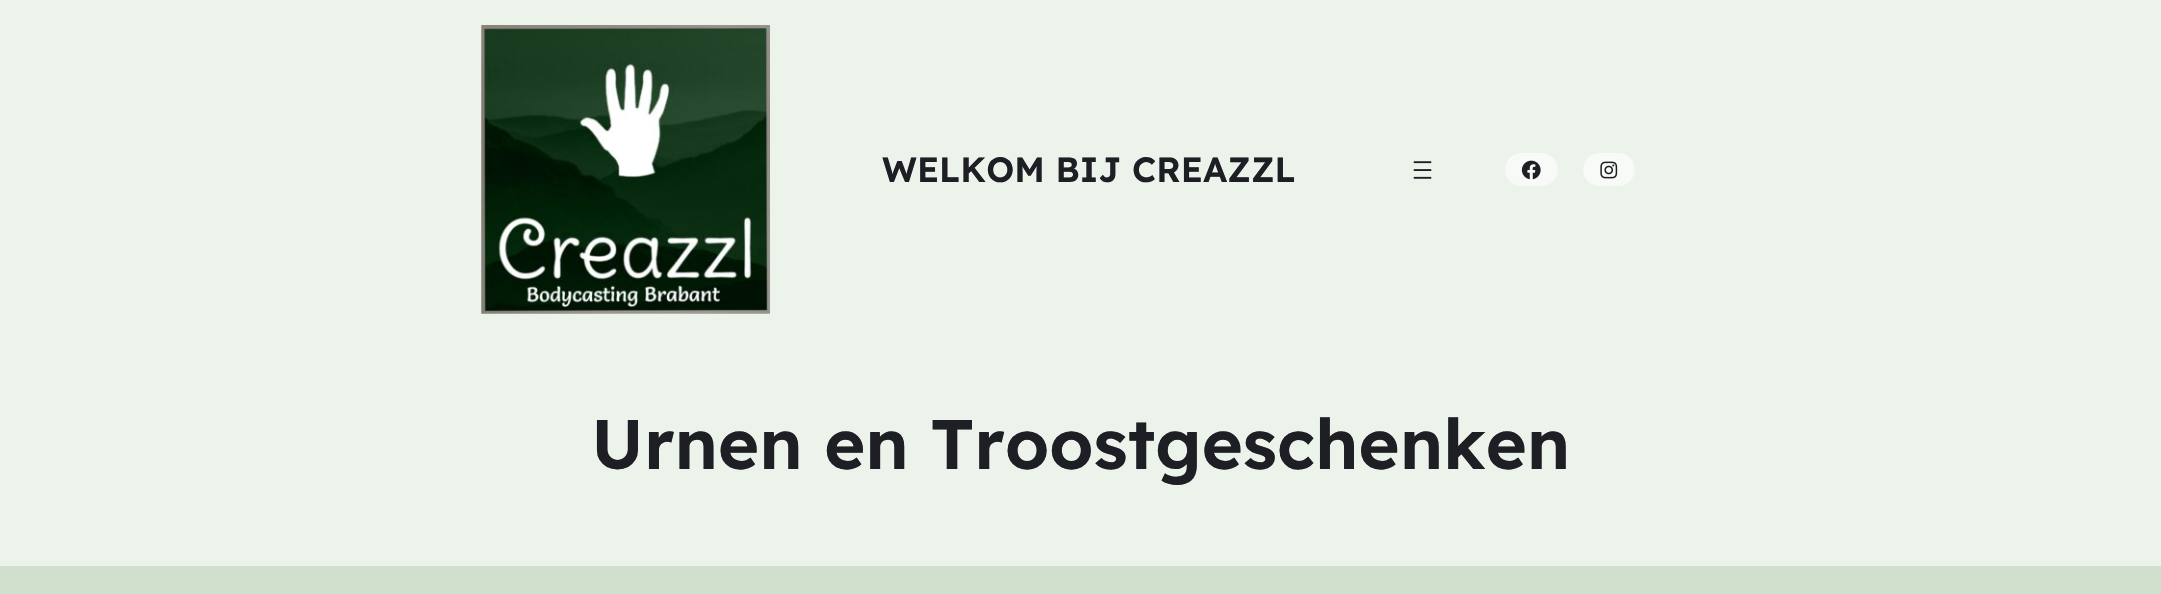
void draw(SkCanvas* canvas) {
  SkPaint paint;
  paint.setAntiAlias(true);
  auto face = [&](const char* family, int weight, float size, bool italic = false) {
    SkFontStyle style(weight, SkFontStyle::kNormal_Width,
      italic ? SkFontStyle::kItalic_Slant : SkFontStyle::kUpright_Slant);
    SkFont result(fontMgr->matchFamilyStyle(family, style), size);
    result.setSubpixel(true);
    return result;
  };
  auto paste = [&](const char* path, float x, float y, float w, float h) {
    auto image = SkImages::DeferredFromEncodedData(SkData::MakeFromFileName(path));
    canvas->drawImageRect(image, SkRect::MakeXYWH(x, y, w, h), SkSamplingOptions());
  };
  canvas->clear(0xffd0e0cc);
  paint.setColor(0xffecf3eb);
  canvas->drawRect(SkRect::MakeXYWH(0, 0, 2161, 566), paint);
  paste("img/1.png", 481, 25, 289, 289);
  paste("img/2.png", 1413, 161, 19, 18);
  paint.setColor(0xfff7faf7);
  canvas->drawRoundRect(SkRect::MakeXYWH(1505, 153, 53, 33), 16.5f, 16.5f, paint);
  paste("img/3.png", 1521, 160, 20, 20);
  canvas->drawRoundRect(SkRect::MakeXYWH(1583, 153, 52, 33), 16.5f, 16.5f, paint);
  paste("img/4.png", 1600, 161, 18, 18);
  auto f0 = face("Readex Pro", 600, 35);
  paint.setColor(0xff1d1f25);
  canvas->drawString("WELKOM BIJ CREAZZL", 882, 182, f0, paint);
  auto f1 = face("Readex Pro", 600, 70);
  canvas->drawString("Urnen en Troostgeschenken", 591, 469, f1, paint);
}
